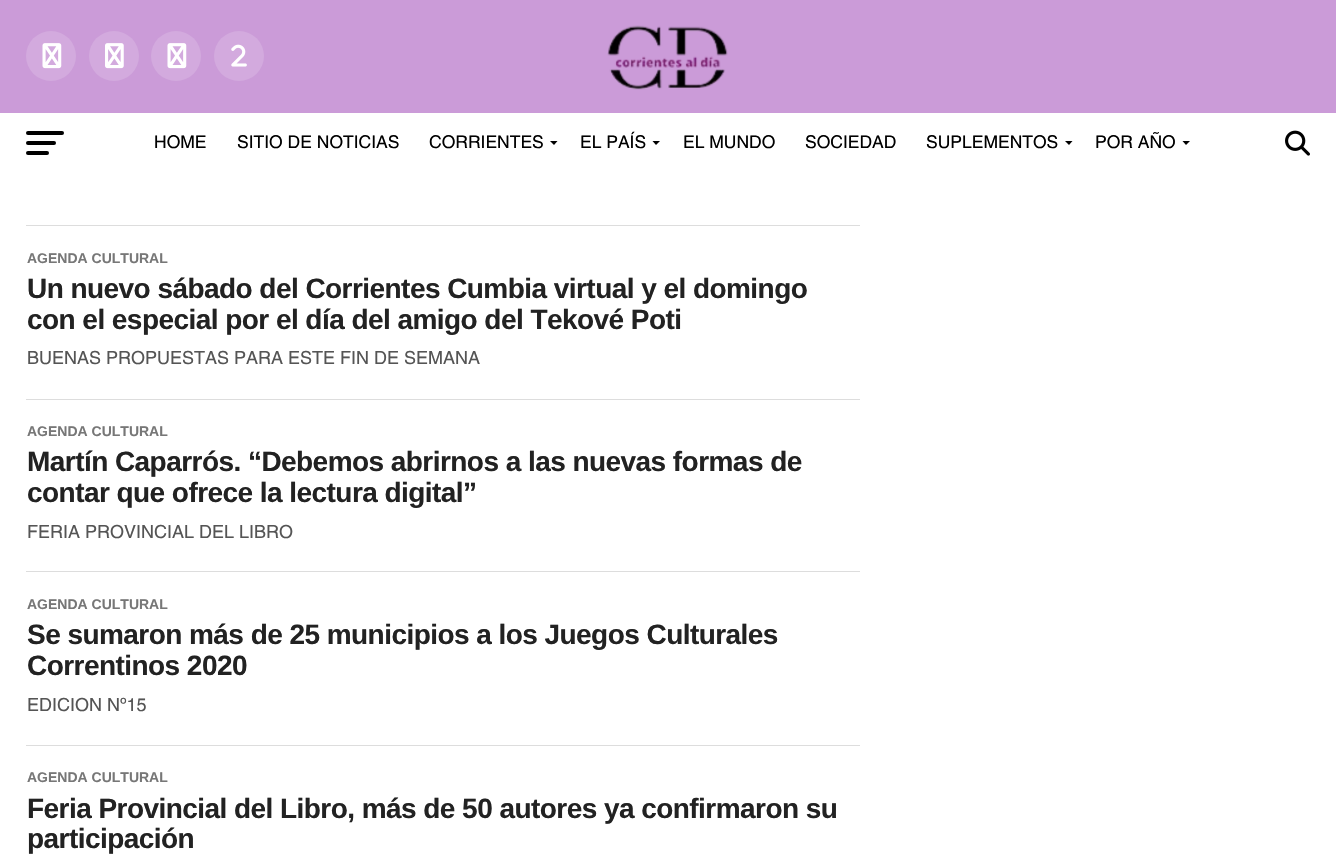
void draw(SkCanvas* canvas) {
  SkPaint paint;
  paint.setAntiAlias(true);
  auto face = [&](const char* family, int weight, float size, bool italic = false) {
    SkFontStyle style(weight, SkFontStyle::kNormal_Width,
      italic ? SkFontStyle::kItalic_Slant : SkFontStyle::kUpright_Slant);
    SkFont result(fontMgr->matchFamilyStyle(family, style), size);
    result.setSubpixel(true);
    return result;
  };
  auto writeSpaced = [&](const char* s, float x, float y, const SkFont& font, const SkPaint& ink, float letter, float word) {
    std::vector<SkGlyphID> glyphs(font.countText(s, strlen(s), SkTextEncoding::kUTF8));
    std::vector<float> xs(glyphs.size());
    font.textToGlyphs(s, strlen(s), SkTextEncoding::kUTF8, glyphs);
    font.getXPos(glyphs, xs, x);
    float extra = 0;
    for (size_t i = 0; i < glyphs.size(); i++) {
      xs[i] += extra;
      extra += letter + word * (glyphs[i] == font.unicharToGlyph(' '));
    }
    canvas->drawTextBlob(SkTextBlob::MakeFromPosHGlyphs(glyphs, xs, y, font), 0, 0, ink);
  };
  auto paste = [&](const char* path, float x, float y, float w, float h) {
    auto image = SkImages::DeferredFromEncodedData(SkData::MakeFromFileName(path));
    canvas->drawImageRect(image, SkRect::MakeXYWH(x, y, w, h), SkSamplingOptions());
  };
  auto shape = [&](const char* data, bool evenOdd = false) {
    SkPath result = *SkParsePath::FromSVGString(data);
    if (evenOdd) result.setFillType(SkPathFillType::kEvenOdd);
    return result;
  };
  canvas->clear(0xffffffff);
  paint.setColor(0xffcb9bd8);
  canvas->drawRect(SkRect::MakeXYWH(0, 0, 1336, 113), paint);
  paint.setColor(0xffd3aade);
  canvas->drawCircle(51, 56, 25, paint);
  paste("img/1.png", 42, 43, 20, 26);
  canvas->drawCircle(114, 56, 25, paint);
  paste("img/2.png", 105, 43, 19, 26);
  canvas->drawCircle(176, 56, 25, paint);
  paste("img/1.png", 167, 43, 20, 26);
  canvas->drawCircle(239, 56, 25, paint);
  paste("img/3.png", 231, 44, 16, 23);
  paste("img/4.png", 607, 25, 121, 65);
  paint.setColor(0xff000000);
  canvas->drawRoundRect(SkRect::MakeXYWH(26, 131, 38, 4), 2, 2, paint);
  canvas->drawRoundRect(SkRect::MakeXYWH(26, 141, 30, 4), 2, 2, paint);
  canvas->drawRoundRect(SkRect::MakeXYWH(26, 151, 23, 4), 2, 2, paint);
  canvas->drawPath(shape("M550 141H557.5L554 145Z"), paint);
  canvas->drawPath(shape("M652.5 141H660L656 145Z"), paint);
  canvas->drawPath(shape("M1065 141H1072.5L1069 145Z"), paint);
  canvas->drawPath(shape("M1182.5 141H1190L1186 145Z"), paint);
  paste("img/5.png", 1285, 130, 25, 26);
  {
    const struct { float x, y, w, h; SkColor color; } items[] = {
      {26, 225, 834, 1, 0xffdddddd},
      {26, 399, 834, 1, 0xffdddddd},
      {26, 571, 834, 1, 0xffdddddd},
      {26, 745, 834, 1, 0xffdddddd},
    };
    for (auto [x, y, w, h, color] : items) {
      paint.setColor(color);
      canvas->drawRect(SkRect::MakeXYWH(x, y, w, h), paint);
    }
  }
  auto f0 = face("Helvetica", 400, 17.5f);
  paint.setColor(0xff000000);
  {
    const struct { const char* s; float x, y; } items[] = {
      {"HOME", 154, 148},
      {"SITIO DE NOTICIAS", 237, 148},
      {"CORRIENTES", 429, 148},
      {"EL PAÍS", 580, 148},
      {"EL MUNDO", 683, 148},
      {"SOCIEDAD", 805, 148},
      {"SUPLEMENTOS", 926, 148},
      {"POR AÑO", 1095, 148},
    };
    for (auto [s, x, y] : items) {
      canvas->drawString(s, x, y, f0, paint);
    }
  }
  auto f1 = face("Liberation Sans", 700, 14);
  paint.setColor(0xff777777);
  canvas->drawString("AGENDA CULTURAL", 27, 263, f1, paint);
  auto f2 = face("Liberation Sans", 700, 28);
  paint.setColor(0xff222222);
  writeSpaced("Un nuevo sábado del Corrientes Cumbia virtual y el domingo", 27, 298, f2, paint, -0.55f, 0);
  writeSpaced("con el especial por el día del amigo del Tekové Poti", 27, 329, f2, paint, -0.55f, 0);
  auto f3 = face("Helvetica", 400, 18);
  paint.setColor(0xff555555);
  canvas->drawString("BUENAS PROPUESTAS PARA ESTE FIN DE SEMANA", 27, 364, f3, paint);
  paint.setColor(0xff777777);
  canvas->drawString("AGENDA CULTURAL", 27, 436, f1, paint);
  paint.setColor(0xff222222);
  writeSpaced("Martín Caparrós. “Debemos abrirnos a las nuevas formas de", 27, 471, f2, paint, -0.55f, 0);
  writeSpaced("contar que ofrece la lectura digital”", 27, 502, f2, paint, -0.55f, 0);
  paint.setColor(0xff555555);
  canvas->drawString("FERIA PROVINCIAL DEL LIBRO", 27, 538, f3, paint);
  paint.setColor(0xff777777);
  canvas->drawString("AGENDA CULTURAL", 27, 609, f1, paint);
  paint.setColor(0xff222222);
  writeSpaced("Se sumaron más de 25 municipios a los Juegos Culturales", 27, 644, f2, paint, -0.55f, 0);
  writeSpaced("Correntinos 2020", 27, 675, f2, paint, -0.55f, 0);
  paint.setColor(0xff555555);
  canvas->drawString("EDICION Nº15", 27, 711, f3, paint);
  paint.setColor(0xff777777);
  canvas->drawString("AGENDA CULTURAL", 27, 782, f1, paint);
  paint.setColor(0xff222222);
  writeSpaced("Feria Provincial del Libro, más de 50 autores ya confirmaron su", 27, 818, f2, paint, -0.55f, 0);
  writeSpaced("participación", 27, 848, f2, paint, -0.55f, 0);
}
